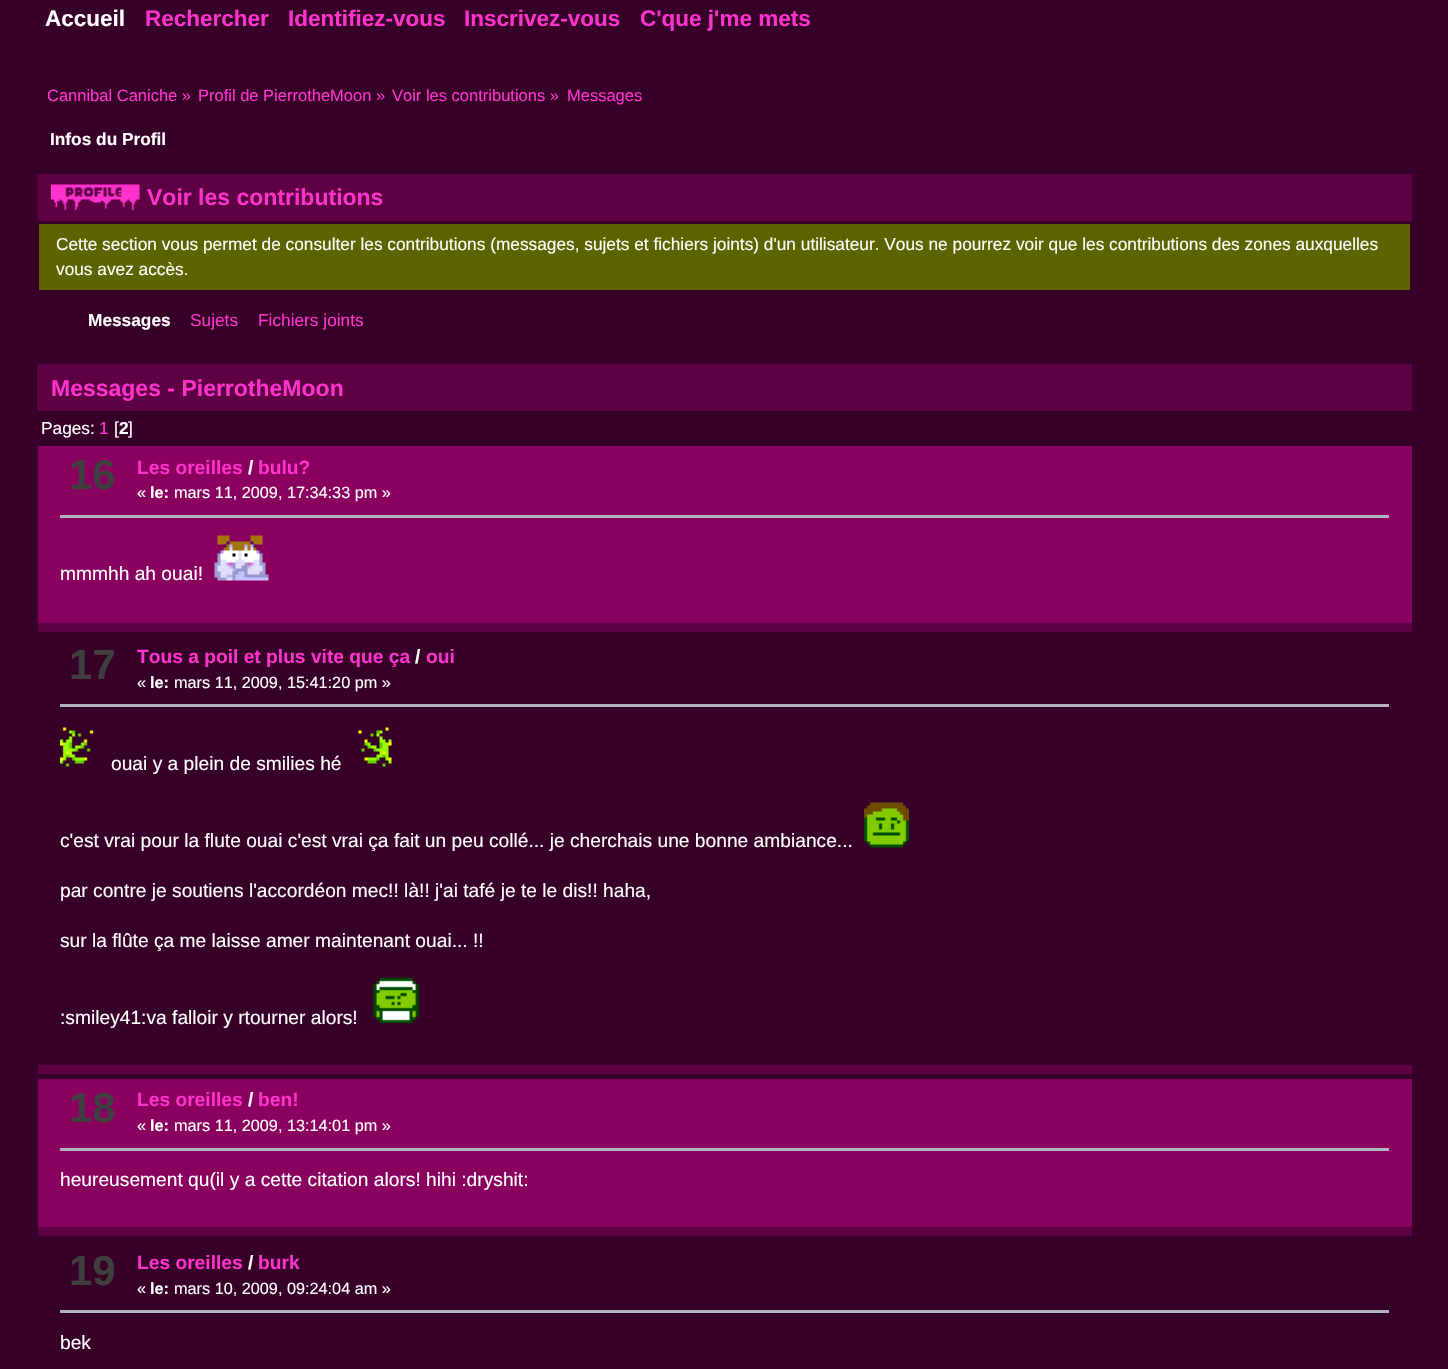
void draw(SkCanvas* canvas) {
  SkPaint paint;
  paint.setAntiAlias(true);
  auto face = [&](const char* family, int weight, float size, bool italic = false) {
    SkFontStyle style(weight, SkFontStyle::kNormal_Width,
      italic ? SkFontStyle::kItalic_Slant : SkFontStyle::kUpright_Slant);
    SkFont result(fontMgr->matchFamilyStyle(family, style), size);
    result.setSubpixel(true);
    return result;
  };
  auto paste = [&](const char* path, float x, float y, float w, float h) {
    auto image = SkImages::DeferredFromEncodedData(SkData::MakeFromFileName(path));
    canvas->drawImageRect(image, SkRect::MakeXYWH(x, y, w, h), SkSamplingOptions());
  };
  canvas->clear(0xff370028);
  paint.setColor(0xff5e0044);
  canvas->drawRect(SkRect::MakeXYWH(38, 174, 1374, 47), paint);
  paste("img/1.png", 37, 174, 1, 47);
  paste("img/2.png", 51, 184, 89, 27);
  {
    const struct { float x, y, w, h; SkColor color; } items[] = {
      {39, 224, 1371, 66, 0xff5c6400},
      {37, 364, 1375, 47, 0xff5e0044},
      {38, 446, 1374, 177, 0xff8a005e},
      {60, 515, 1329, 3, 0xffb3b3bf},
    };
    for (auto [x, y, w, h, color] : items) {
      paint.setColor(color);
      canvas->drawRect(SkRect::MakeXYWH(x, y, w, h), paint);
    }
  }
  paste("img/3.png", 214, 535, 55, 46);
  paint.setColor(0xff5e0044);
  canvas->drawRect(SkRect::MakeXYWH(38, 623, 1374, 9), paint);
  paint.setColor(0xffb3b3bf);
  canvas->drawRect(SkRect::MakeXYWH(60, 704, 1329, 3), paint);
  paste("img/4.png", 60, 727, 34, 40);
  paste("img/5.png", 358, 727, 34, 40);
  paste("img/6.png", 864, 802, 45, 46);
  paste("img/7.png", 373, 978, 46, 45);
  {
    const struct { float x, y, w, h; SkColor color; } items[] = {
      {38, 1065, 1374, 9, 0xff5e0044},
      {38, 1079, 1374, 148, 0xff8a005e},
      {60, 1148, 1329, 3, 0xffb3b3bf},
      {38, 1227, 1374, 9, 0xff5e0044},
      {60, 1310, 1329, 3, 0xffb3b3bf},
    };
    for (auto [x, y, w, h, color] : items) {
      paint.setColor(color);
      canvas->drawRect(SkRect::MakeXYWH(x, y, w, h), paint);
    }
  }
  auto f0 = face("Liberation Sans", 700, 22.5f);
  paint.setColor(0xffffffff);
  canvas->drawString("Accueil", 45, 26, f0, paint);
  paint.setColor(0xffff33cc);
  {
    const struct { const char* s; float x, y; } items[] = {
      {"Rechercher", 145, 26},
      {"Identifiez-vous", 288, 26},
      {"Inscrivez-vous", 464, 26},
      {"C'que j'me mets", 640, 26},
    };
    for (auto [s, x, y] : items) {
      canvas->drawString(s, x, y, f0, paint);
    }
  }
  auto f1 = face("Liberation Sans", 400, 16.5f);
  {
    const struct { const char* s; float x, y; } items[] = {
      {"Cannibal Caniche »", 47, 101},
      {"Profil de PierrotheMoon »", 198, 101},
      {"Voir les contributions »", 392, 101},
      {"Messages", 567, 101},
    };
    for (auto [s, x, y] : items) {
      canvas->drawString(s, x, y, f1, paint);
    }
  }
  auto f2 = face("Liberation Sans", 700, 17.28f);
  paint.setColor(0xffffffff);
  canvas->drawString("Infos du Profil", 50, 145, f2, paint);
  auto f3 = face("Liberation Sans", 700, 23);
  paint.setColor(0xffff33cc);
  canvas->drawString("Voir les contributions", 147, 205, f3, paint);
  auto f4 = face("Liberation Sans", 400, 17.28f);
  paint.setColor(0xffffffff);
  canvas->drawString("Cette section vous permet de consulter les contributions (messages, sujets et fichiers joints) d'un utilisateur. Vous ne pourrez voir que les contributions des zones auxquelles", 56, 250, f4, paint);
  canvas->drawString("vous avez accès.", 56, 275, f4, paint);
  canvas->drawString("Messages", 88, 326, f2, paint);
  paint.setColor(0xffff33cc);
  canvas->drawString("Sujets", 190, 326, f4, paint);
  canvas->drawString("Fichiers joints", 258, 326, f4, paint);
  canvas->drawString("Messages - PierrotheMoon", 51, 396, f3, paint);
  paint.setColor(0xffffffff);
  canvas->drawString("Pages:", 41, 434, f4, paint);
  paint.setColor(0xffff33cc);
  canvas->drawString("1", 99, 434, f4, paint);
  paint.setColor(0xffffffff);
  canvas->drawString("[", 114, 434, f4, paint);
  canvas->drawString("2", 119, 434, f2, paint);
  canvas->drawString("]", 128, 434, f4, paint);
  auto f5 = face("Liberation Sans", 700, 42);
  paint.setColor(0xff3f3f3f);
  canvas->drawString("16", 69, 489, f5, paint);
  auto f6 = face("Liberation Sans", 700, 19.2f);
  paint.setColor(0xffff33cc);
  canvas->drawString("Les oreilles", 137, 474, f6, paint);
  paint.setColor(0xffffffff);
  canvas->drawString("/", 248, 474, f6, paint);
  paint.setColor(0xffff33cc);
  canvas->drawString("bulu?", 258, 474, f6, paint);
  auto f7 = face("Liberation Sans", 400, 16.25f);
  paint.setColor(0xffffffff);
  canvas->drawString("«", 137, 498, f7, paint);
  auto f8 = face("Liberation Sans", 700, 16.25f);
  canvas->drawString("le:", 150, 498, f8, paint);
  canvas->drawString("mars 11, 2009, 17:34:33 pm »", 174, 498, f7, paint);
  auto f9 = face("Liberation Sans", 400, 19.2f);
  canvas->drawString("mmmhh ah ouai!", 60, 580, f9, paint);
  paint.setColor(0xff3f3f3f);
  canvas->drawString("17", 69, 679, f5, paint);
  paint.setColor(0xffff33cc);
  canvas->drawString("Tous a poil et plus vite que ça", 137, 663, f6, paint);
  paint.setColor(0xffffffff);
  canvas->drawString("/", 415, 663, f6, paint);
  paint.setColor(0xffff33cc);
  canvas->drawString("oui", 426, 663, f6, paint);
  paint.setColor(0xffffffff);
  canvas->drawString("«", 137, 688, f7, paint);
  canvas->drawString("le:", 150, 688, f8, paint);
  canvas->drawString("mars 11, 2009, 15:41:20 pm »", 174, 688, f7, paint);
  {
    const struct { const char* s; float x, y; } items[] = {
      {"ouai y a plein de smilies hé", 111, 770},
      {"c'est vrai pour la flute ouai c'est vrai ça fait un peu collé... je cherchais une bonne ambiance...", 60, 847},
      {"par contre je soutiens l'accordéon mec!! là!! j'ai tafé je te le dis!! haha,", 60, 897},
      {"sur la flûte ça me laisse amer maintenant ouai... !!", 60, 947},
      {":smiley41:va falloir y rtourner alors!", 60, 1024},
    };
    for (auto [s, x, y] : items) {
      canvas->drawString(s, x, y, f9, paint);
    }
  }
  paint.setColor(0xff3f3f3f);
  canvas->drawString("18", 69, 1122, f5, paint);
  paint.setColor(0xffff33cc);
  canvas->drawString("Les oreilles", 137, 1106, f6, paint);
  paint.setColor(0xffffffff);
  canvas->drawString("/", 248, 1106, f6, paint);
  paint.setColor(0xffff33cc);
  canvas->drawString("ben!", 258, 1106, f6, paint);
  paint.setColor(0xffffffff);
  canvas->drawString("«", 137, 1131, f7, paint);
  canvas->drawString("le:", 150, 1131, f8, paint);
  canvas->drawString("mars 11, 2009, 13:14:01 pm »", 174, 1131, f7, paint);
  canvas->drawString("heureusement qu(il y a cette citation alors! hihi :dryshit:", 60, 1186, f9, paint);
  paint.setColor(0xff3f3f3f);
  canvas->drawString("19", 69, 1285, f5, paint);
  paint.setColor(0xffff33cc);
  canvas->drawString("Les oreilles", 137, 1269, f6, paint);
  paint.setColor(0xffffffff);
  canvas->drawString("/", 248, 1269, f6, paint);
  paint.setColor(0xffff33cc);
  canvas->drawString("burk", 258, 1269, f6, paint);
  paint.setColor(0xffffffff);
  canvas->drawString("«", 137, 1294, f7, paint);
  canvas->drawString("le:", 150, 1294, f8, paint);
  canvas->drawString("mars 10, 2009, 09:24:04 am »", 174, 1294, f7, paint);
  canvas->drawString("bek", 60, 1349, f9, paint);
}
